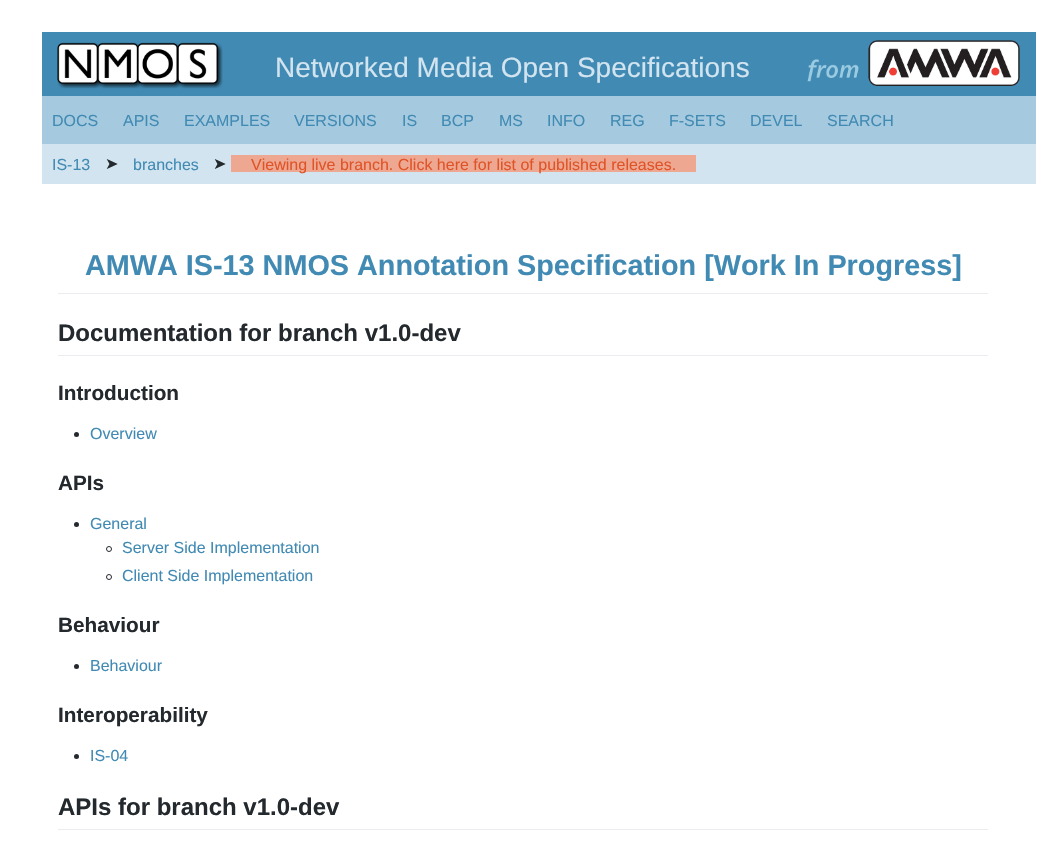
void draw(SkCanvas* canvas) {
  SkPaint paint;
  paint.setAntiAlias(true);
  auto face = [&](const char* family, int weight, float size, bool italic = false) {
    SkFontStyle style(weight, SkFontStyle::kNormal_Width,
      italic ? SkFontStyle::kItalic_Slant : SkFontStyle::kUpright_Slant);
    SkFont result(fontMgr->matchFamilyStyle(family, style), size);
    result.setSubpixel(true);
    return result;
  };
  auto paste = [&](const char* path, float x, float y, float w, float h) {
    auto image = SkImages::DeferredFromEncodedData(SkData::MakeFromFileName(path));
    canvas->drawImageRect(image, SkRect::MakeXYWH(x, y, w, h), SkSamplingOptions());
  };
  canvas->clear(0xffffffff);
  paint.setColor(0xff418ab3);
  canvas->drawRect(SkRect::MakeXYWH(42, 32, 994, 64), paint);
  paste("img/1.png", 57, 42, 166, 47);
  paste("img/2.png", 807, 40, 213, 46);
  {
    const struct { float x, y, w, h; SkColor color; } items[] = {
      {42, 96, 994, 48, 0xffa5cadf},
      {42, 144, 994, 40, 0xffd1e4ef},
      {231, 155, 465, 17, 0xffeea892},
      {58, 293, 930, 1, 0xffeaecef},
      {58, 355, 930, 1, 0xffeaecef},
    };
    for (auto [x, y, w, h, color] : items) {
      paint.setColor(color);
      canvas->drawRect(SkRect::MakeXYWH(x, y, w, h), paint);
    }
  }
  paint.setColor(0xff24292e);
  canvas->drawCircle(76.5f, 434.5f, 2.5f, paint);
  canvas->drawCircle(76.5f, 524.5f, 2.5f, paint);
  paint.setStroke(true);
  paint.setStrokeWidth(1);
  canvas->drawCircle(109, 549, 2.5f, paint);
  canvas->drawCircle(109, 577, 2.5f, paint);
  paint.setStroke(false);
  canvas->drawCircle(76.5f, 666.5f, 2.5f, paint);
  canvas->drawCircle(76.5f, 756.5f, 2.5f, paint);
  paint.setColor(0xffeaecef);
  canvas->drawRect(SkRect::MakeXYWH(58, 829, 930, 1), paint);
  auto f0 = face("Liberation Sans", 400, 28);
  paint.setColor(0xffd1e4ef);
  canvas->drawString("Networked Media Open Specifications", 275, 77, f0, paint);
  auto f1 = face("Liberation Sans", 400, 16);
  paint.setColor(0xff418ab3);
  {
    const struct { const char* s; float x, y; } items[] = {
      {"DOCS", 52, 126},
      {"APIS", 123, 126},
      {"EXAMPLES", 184, 126},
      {"VERSIONS", 294, 126},
      {"IS", 402, 126},
      {"BCP", 441, 126},
      {"MS", 499, 126},
      {"INFO", 547, 126},
      {"REG", 610, 126},
      {"F-SETS", 669, 126},
      {"DEVEL", 750, 126},
      {"SEARCH", 827, 126},
      {"IS-13", 52, 170},
    };
    for (auto [s, x, y] : items) {
      canvas->drawString(s, x, y, f1, paint);
    }
  }
  auto f2 = face("DejaVu Sans", 400, 16);
  paint.setColor(0xff24292e);
  canvas->drawString("➤", 105, 169, f2, paint);
  paint.setColor(0xff418ab3);
  canvas->drawString("branches", 133, 170, f1, paint);
  paint.setColor(0xff24292e);
  canvas->drawString("➤", 213, 169, f2, paint);
  paint.setColor(0xffdf5327);
  canvas->drawString("Viewing live branch. Click here for list of published releases.", 251, 170, f1, paint);
  auto f3 = face("Liberation Sans", 700, 28.8f);
  paint.setColor(0xff418ab3);
  canvas->drawString("AMWA IS-13 NMOS Annotation Specification [Work In Progress]", 85, 275, f3, paint);
  auto f4 = face("Liberation Sans", 700, 24);
  paint.setColor(0xff24292e);
  canvas->drawString("Documentation for branch v1.0-dev", 58, 341, f4, paint);
  auto f5 = face("Liberation Sans", 700, 20.75f);
  canvas->drawString("Introduction", 58, 400, f5, paint);
  paint.setColor(0xff418ab3);
  canvas->drawString("Overview", 90, 439, f1, paint);
  paint.setColor(0xff24292e);
  canvas->drawString("APIs", 58, 490, f5, paint);
  paint.setColor(0xff418ab3);
  {
    const struct { const char* s; float x, y; } items[] = {
      {"General", 90, 529},
      {"Server Side Implementation", 122, 553},
      {"Client Side Implementation", 122, 581},
    };
    for (auto [s, x, y] : items) {
      canvas->drawString(s, x, y, f1, paint);
    }
  }
  paint.setColor(0xff24292e);
  canvas->drawString("Behaviour", 58, 632, f5, paint);
  paint.setColor(0xff418ab3);
  canvas->drawString("Behaviour", 90, 671, f1, paint);
  paint.setColor(0xff24292e);
  canvas->drawString("Interoperability", 58, 722, f5, paint);
  paint.setColor(0xff418ab3);
  canvas->drawString("IS-04", 90, 761, f1, paint);
  paint.setColor(0xff24292e);
  canvas->drawString("APIs for branch v1.0-dev", 58, 815, f4, paint);
}
